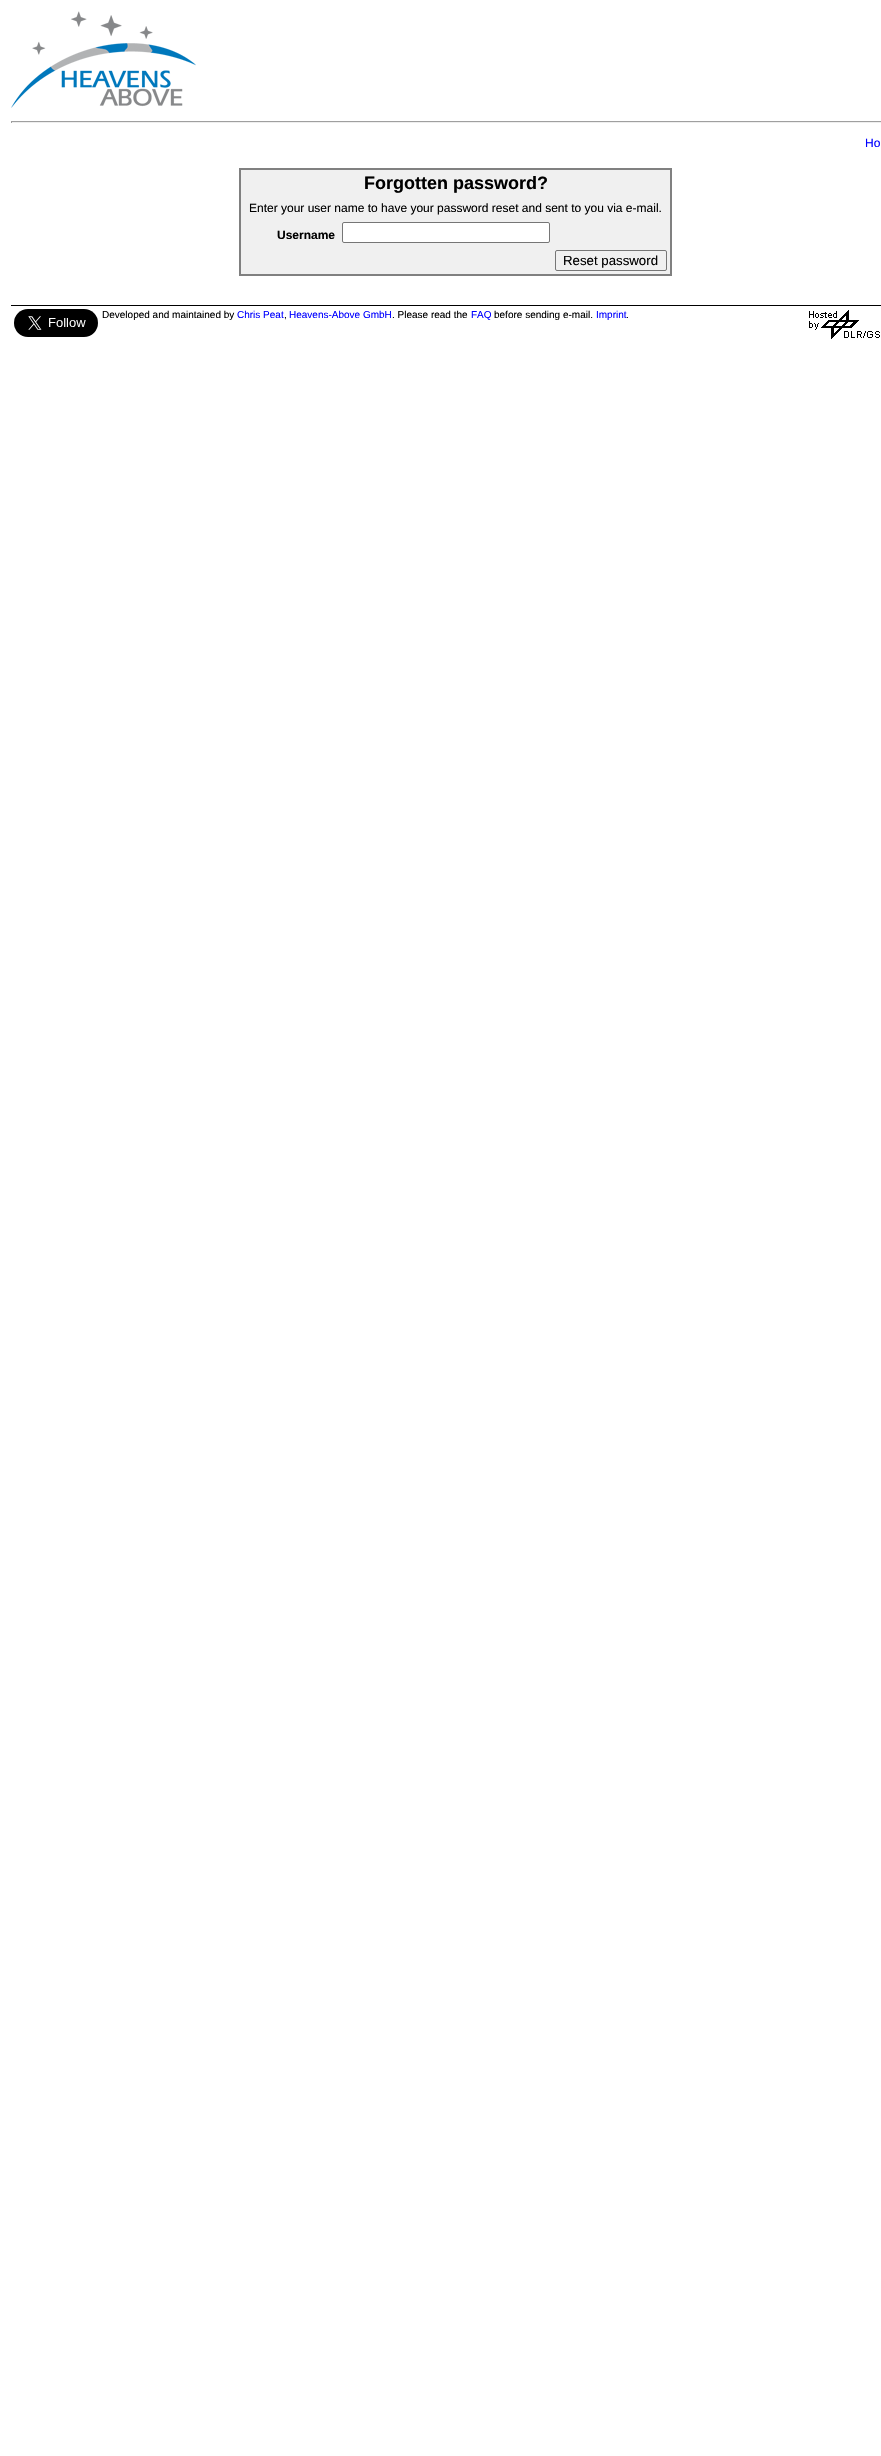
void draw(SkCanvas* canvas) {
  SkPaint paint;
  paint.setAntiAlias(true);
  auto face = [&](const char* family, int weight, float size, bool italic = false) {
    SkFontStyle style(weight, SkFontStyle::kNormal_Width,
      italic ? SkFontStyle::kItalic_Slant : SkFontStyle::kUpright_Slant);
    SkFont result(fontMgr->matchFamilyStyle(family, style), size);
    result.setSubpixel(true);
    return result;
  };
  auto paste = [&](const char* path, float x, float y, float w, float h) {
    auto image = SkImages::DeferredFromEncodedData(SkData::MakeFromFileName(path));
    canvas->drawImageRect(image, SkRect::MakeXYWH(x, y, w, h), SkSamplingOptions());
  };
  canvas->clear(0xffffffff);
  paste("img/1.png", 11, 11, 185, 97);
  {
    const struct { float x, y, w, h; SkColor color; } items[] = {
      {11, 121, 870, 1, 0xff9f9f9f},
      {11, 122, 870, 1, 0xffeeeeee},
      {11, 121, 1, 2, 0xff9f9f9f},
      {241, 170, 429, 104, 0xfff0f0f0},
      {239, 168, 433, 2, 0xff808080},
      {670, 168, 2, 108, 0xff808080},
      {239, 274, 433, 2, 0xff808080},
      {239, 168, 2, 108, 0xff808080},
    };
    for (auto [x, y, w, h, color] : items) {
      paint.setColor(color);
      canvas->drawRect(SkRect::MakeXYWH(x, y, w, h), paint);
    }
  }
  paint.setColor(0xffffffff);
  canvas->drawRoundRect(SkRect::MakeXYWH(342.5f, 222.5f, 207, 20), 1.5f, 1.5f, paint);
  paint.setStroke(true);
  paint.setStrokeWidth(1);
  paint.setColor(0xff767676);
  canvas->drawRoundRect(SkRect::MakeXYWH(342.5f, 222.5f, 207, 20), 1.5f, 1.5f, paint);
  canvas->drawRoundRect(SkRect::MakeXYWH(555.5f, 250.5f, 111, 20), 1.5f, 1.5f, paint);
  paint.setStroke(false);
  paint.setColor(0xff000000);
  canvas->drawRect(SkRect::MakeXYWH(11, 305, 870, 1), paint);
  paste("img/2.png", 14, 309, 84, 28);
  paste("img/3.png", 809, 310, 71, 29);
  auto f0 = face("Liberation Sans", 400, 12);
  paint.setColor(0xff0000ff);
  canvas->drawString("Ho", 865, 147, f0, paint);
  auto f1 = face("Liberation Sans", 700, 18);
  paint.setColor(0xff000000);
  canvas->drawString("Forgotten password?", 364, 189, f1, paint);
  canvas->drawString("Enter your user name to have your password reset and sent to you via e-mail.", 249, 212, f0, paint);
  auto f2 = face("Liberation Sans", 700, 12);
  canvas->drawString("Username", 277, 239, f2, paint);
  auto f3 = face("Liberation Sans", 400, 13.25f);
  canvas->drawString("Reset password", 563, 265, f3, paint);
  auto f4 = face("Liberation Sans", 400, 10);
  canvas->drawString("Developed and maintained by", 102, 318, f4, paint);
  paint.setColor(0xff0000ff);
  canvas->drawString("Chris Peat", 237, 318, f4, paint);
  paint.setColor(0xff000000);
  canvas->drawString(",", 284, 318, f4, paint);
  paint.setColor(0xff0000ff);
  canvas->drawString("Heavens-Above GmbH", 289, 318, f4, paint);
  paint.setColor(0xff000000);
  canvas->drawString(". Please read the", 392, 318, f4, paint);
  paint.setColor(0xff0000ff);
  canvas->drawString("FAQ", 471, 318, f4, paint);
  paint.setColor(0xff000000);
  canvas->drawString("before sending e-mail.", 494, 318, f4, paint);
  paint.setColor(0xff0000ff);
  canvas->drawString("Imprint", 596, 318, f4, paint);
  paint.setColor(0xff000000);
  canvas->drawString(".", 626, 318, f4, paint);
}
